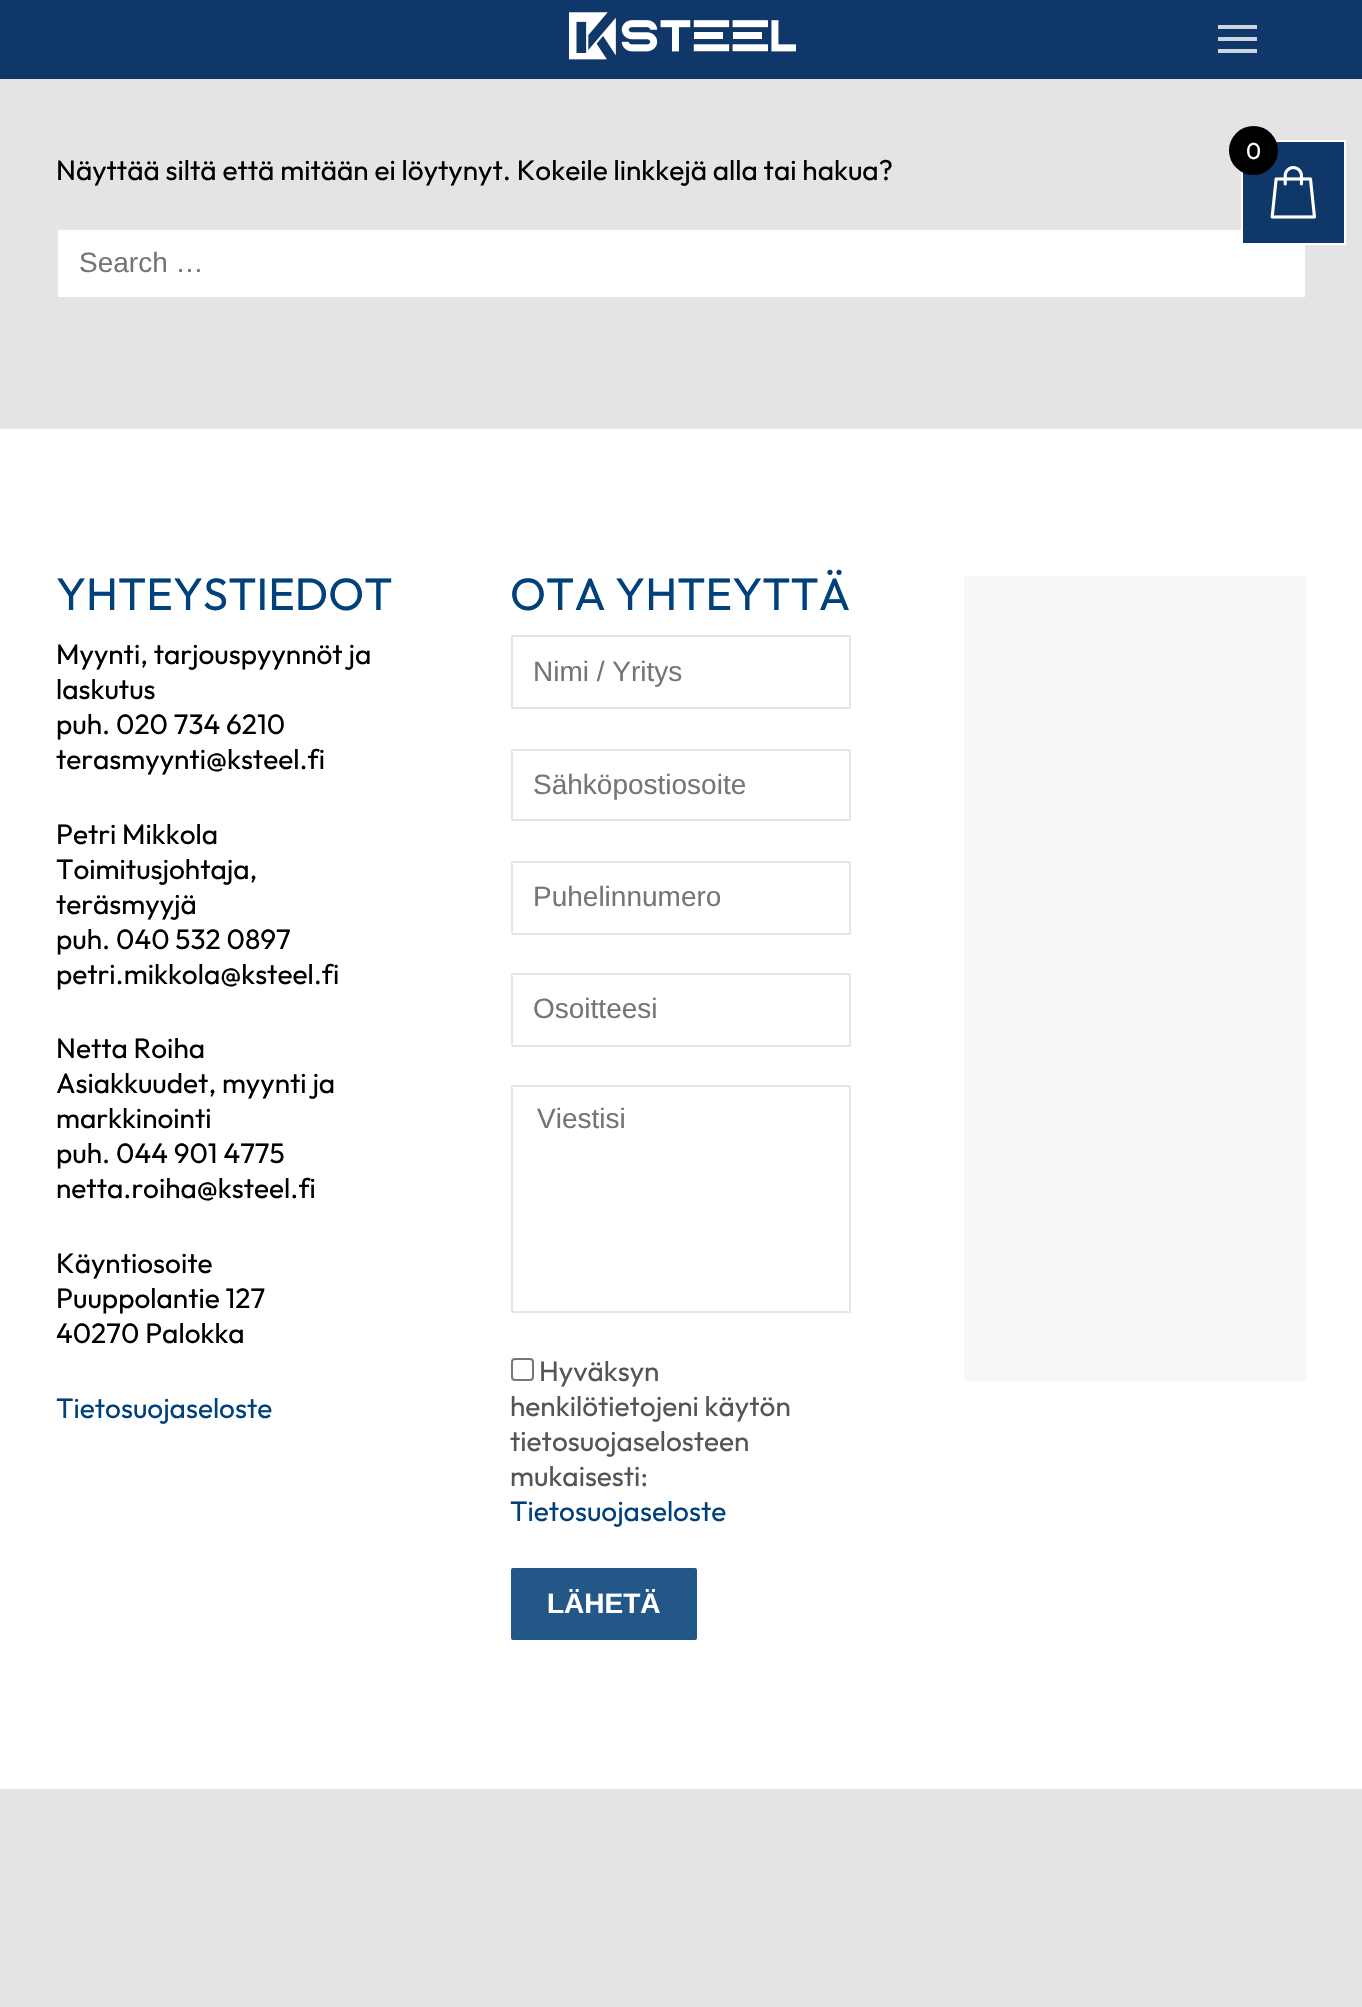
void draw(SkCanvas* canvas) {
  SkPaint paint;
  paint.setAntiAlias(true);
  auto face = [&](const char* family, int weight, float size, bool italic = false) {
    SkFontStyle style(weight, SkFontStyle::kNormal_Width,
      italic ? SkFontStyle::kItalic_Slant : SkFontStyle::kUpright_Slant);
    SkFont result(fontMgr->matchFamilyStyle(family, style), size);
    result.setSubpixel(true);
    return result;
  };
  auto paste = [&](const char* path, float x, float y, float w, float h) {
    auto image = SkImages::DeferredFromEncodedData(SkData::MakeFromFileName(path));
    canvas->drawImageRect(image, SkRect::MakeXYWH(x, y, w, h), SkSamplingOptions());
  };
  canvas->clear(0xffe4e4e4);
  paint.setColor(0xffffffff);
  canvas->drawRoundRect(SkRect::MakeXYWH(57, 229, 1249, 69), 1, 1, paint);
  paint.setStroke(true);
  paint.setStrokeWidth(2);
  paint.setColor(0xffe5e5e5);
  canvas->drawRoundRect(SkRect::MakeXYWH(57, 229, 1249, 69), 1, 1, paint);
  paint.setStroke(false);
  paint.setColor(0xff0f3769);
  canvas->drawRect(SkRect::MakeXYWH(1242, 141, 103, 103), paint);
  paint.setStroke(true);
  paint.setColor(0xffffffff);
  canvas->drawRect(SkRect::MakeXYWH(1242, 141, 103, 103), paint);
  paste("img/1.png", 1270, 166, 46, 53);
  paint.setStroke(false);
  paint.setColor(0xff000000);
  canvas->drawCircle(1253.5f, 150.5f, 24.5f, paint);
  paint.setColor(0xff0f3769);
  canvas->drawRect(SkRect::MakeXYWH(0, 0, 1362, 79), paint);
  paste("img/2.png", 569, 12, 227, 48);
  {
    const struct { float x, y, w, h; SkColor color; } items[] = {
      {1218, 37, 39, 4, 0xffcdd5e0},
      {1218, 25, 39, 4, 0xffcdd5e0},
      {1218, 49, 39, 4, 0xffcdd5e0},
      {0, 429, 1362, 1360, 0xffffffff},
    };
    for (auto [x, y, w, h, color] : items) {
      paint.setColor(color);
      canvas->drawRect(SkRect::MakeXYWH(x, y, w, h), paint);
    }
  }
  paint.setStroke(true);
  paint.setColor(0xffe5e5e5);
  canvas->drawRoundRect(SkRect::MakeXYWH(512, 636, 338, 72), 1, 1, paint);
  canvas->drawRoundRect(SkRect::MakeXYWH(512, 750, 338, 70), 1, 1, paint);
  canvas->drawRoundRect(SkRect::MakeXYWH(512, 862, 338, 72), 1, 1, paint);
  canvas->drawRoundRect(SkRect::MakeXYWH(512, 974, 338, 72), 1, 1, paint);
  canvas->drawRoundRect(SkRect::MakeXYWH(512, 1086, 338, 226), 1, 1, paint);
  paint.setColor(0xff767676);
  canvas->drawRoundRect(SkRect::MakeXYWH(512, 1359, 21, 21), 3, 3, paint);
  paint.setStroke(false);
  paint.setColor(0xff235787);
  canvas->drawRoundRect(SkRect::MakeXYWH(511, 1568, 186, 72), 2, 2, paint);
  paint.setColor(0xfff7f7f7);
  canvas->drawRect(SkRect::MakeXYWH(964, 576, 342, 805), paint);
  auto f0 = face("Outfit", 400, 23);
  paint.setColor(0xffffffff);
  canvas->drawString("0", 1246, 159, f0, paint);
  auto f1 = face("Outfit", 400, 28);
  paint.setColor(0xff000000);
  canvas->drawString("Näyttää siltä että mitään ei löytynyt. Kokeile linkkejä alla tai hakua?", 56, 180, f1, paint);
  auto f2 = face("Liberation Sans", 400, 28);
  paint.setColor(0xff757575);
  canvas->drawString("Search …", 79, 272, f2, paint);
  auto f3 = face("Outfit", 400, 45.25f);
  paint.setColor(0xff00417b);
  canvas->drawString("YHTEYSTIEDOT", 56, 610, f3, paint);
  paint.setColor(0xff000000);
  {
    const struct { const char* s; float x, y; } items[] = {
      {"Myynti, tarjouspyynnöt ja", 56, 664},
      {"laskutus", 56, 699},
      {"puh. 020 734 6210", 56, 734},
      {"terasmyynti@ksteel.fi", 56, 769},
      {"Petri Mikkola", 56, 844},
      {"Toimitusjohtaja,", 56, 879},
      {"teräsmyyjä", 56, 914},
      {"puh. 040 532 0897", 56, 949},
      {"petri.mikkola@ksteel.fi", 56, 984},
      {"Netta Roiha", 56, 1058},
      {"Asiakkuudet, myynti ja", 56, 1093},
      {"markkinointi", 56, 1128},
      {"puh. 044 901 4775", 56, 1163},
      {"netta.roiha@ksteel.fi", 56, 1198},
      {"Käyntiosoite", 56, 1273},
      {"Puuppolantie 127", 56, 1308},
      {"40270 Palokka", 56, 1343},
    };
    for (auto [s, x, y] : items) {
      canvas->drawString(s, x, y, f1, paint);
    }
  }
  paint.setColor(0xff00417b);
  canvas->drawString("Tietosuojaseloste", 56, 1418, f1, paint);
  canvas->drawString("OTA YHTEYTTÄ", 510, 610, f3, paint);
  paint.setColor(0xff757575);
  {
    const struct { const char* s; float x, y; } items[] = {
      {"Nimi / Yritys", 533, 681},
      {"Sähköpostiosoite", 533, 794},
      {"Puhelinnumero", 533, 906},
      {"Osoitteesi", 533, 1018},
      {"Viestisi", 537, 1128},
    };
    for (auto [s, x, y] : items) {
      canvas->drawString(s, x, y, f2, paint);
    }
  }
  paint.setColor(0xff555555);
  {
    const struct { const char* s; float x, y; } items[] = {
      {"Hyväksyn", 539, 1381},
      {"henkilötietojeni käytön", 510, 1416},
      {"tietosuojaselosteen", 510, 1451},
      {"mukaisesti:", 510, 1486},
    };
    for (auto [s, x, y] : items) {
      canvas->drawString(s, x, y, f1, paint);
    }
  }
  paint.setColor(0xff00417b);
  canvas->drawString("Tietosuojaseloste", 510, 1521, f1, paint);
  auto f4 = face("Liberation Sans", 700, 28);
  paint.setColor(0xffffffff);
  canvas->drawString("LÄHETÄ", 547, 1613, f4, paint);
}
